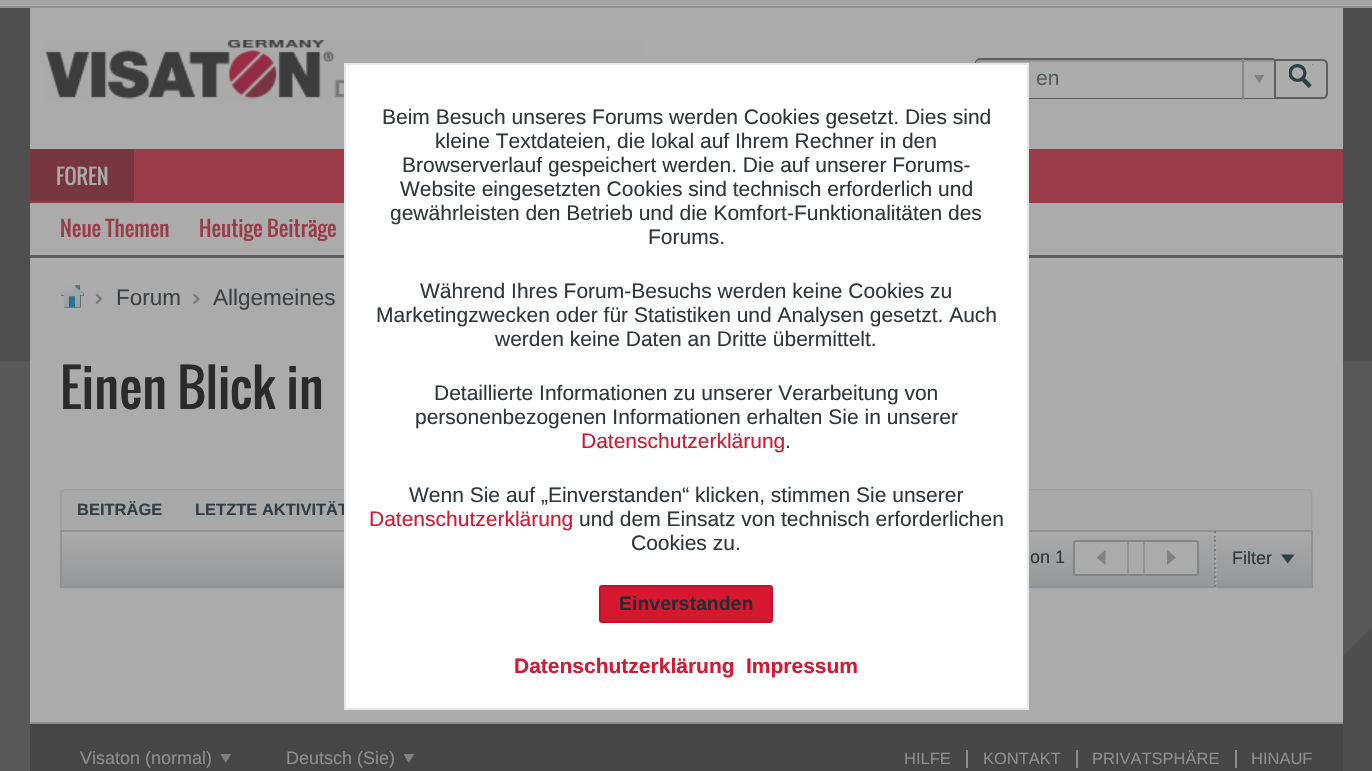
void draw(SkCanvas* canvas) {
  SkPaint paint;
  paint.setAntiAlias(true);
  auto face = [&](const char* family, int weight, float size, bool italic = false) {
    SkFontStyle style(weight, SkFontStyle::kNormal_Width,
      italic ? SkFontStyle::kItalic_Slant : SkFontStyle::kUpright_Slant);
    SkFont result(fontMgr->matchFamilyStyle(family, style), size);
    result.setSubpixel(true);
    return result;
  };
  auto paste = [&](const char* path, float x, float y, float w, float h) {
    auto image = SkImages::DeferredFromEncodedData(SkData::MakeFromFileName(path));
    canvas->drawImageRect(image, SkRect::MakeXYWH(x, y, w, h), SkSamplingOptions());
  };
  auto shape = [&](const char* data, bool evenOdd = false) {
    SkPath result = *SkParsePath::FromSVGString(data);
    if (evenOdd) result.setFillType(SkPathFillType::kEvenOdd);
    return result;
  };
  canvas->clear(0xffffffff);
  paste("img/1.png", 0, 8, 1372, 763);
  {
    const SkColor colors[] = {0xffa7a7a7, 0xffa3a2a2};
    const float stops[] = {0, 1};
    const SkPoint ends[] = {{686, -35}, {686, 7.5f}};
    paint.setShader(SkGradientShader::MakeLinear(ends, colors, stops, 2, SkTileMode::kClamp));
    paint.setAlpha(255);
  }
  canvas->drawRect(SkRect::MakeXYWH(0, 0, 1372, 5), paint);
  paint.setShader(nullptr);
  {
    const struct { float x, y, w, h; SkColor color; } items[] = {
      {0, 5, 1372, 1, 0xffa8a8a8},
      {0, 6, 1372, 2, 0xff8f8f90},
      {30, 8, 1313, 141, 0xffababab},
    };
    for (auto [x, y, w, h, color] : items) {
      paint.setColor(color);
      canvas->drawRect(SkRect::MakeXYWH(x, y, w, h), paint);
    }
  }
  paste("img/2.png", 45, 40, 598, 62);
  paint.setColor(0xff969696);
  canvas->drawPath(shape("M981 62H1274V60H980C978 60 977 61 977 63V95C977 96 977 97 978 97V69C978 66 977 62 981 62Z"), paint);
  paint.setColor(0xff5e5e5e);
  canvas->drawPath(shape("M980 58H1274V99H980C977 99 975 97 975 94V63C975 61 977 58 980 58ZM980 60H1274V98H980C978 98 976 96 976 94V63C976 61 978 60 980 60Z", true), paint);
  paint.setColor(0xff8a8a8a);
  canvas->drawRect(SkRect::MakeXYWH(1242, 59, 2, 40), paint);
  paste("img/3.png", 1254, 75, 11, 9);
  paint.setStroke(true);
  paint.setStrokeWidth(2);
  paint.setColor(0xff5e5e5e);
  canvas->drawPath(shape("M1275 60H1323C1325 60 1327 62 1327 64V94C1327 96 1325 98 1323 98H1275Z"), paint);
  paste("img/4.png", 1289, 64, 24, 24);
  paint.setStroke(false);
  paint.setColor(0xff993b49);
  canvas->drawRect(SkRect::MakeXYWH(30, 149, 1313, 54), paint);
  paint.setColor(0xff77363f);
  canvas->drawPath(shape("M31.5 149H132.5C133.5 149 134 149.5 134 150.5V201H30V150.5C30 149.5 30.5 149 31.5 149Z"), paint);
  {
    const struct { float x, y, w, h; SkColor color; } items[] = {
      {30, 203, 1313, 52, 0xffababab},
      {30, 255, 1313, 3, 0xff5e5e5e},
      {30, 258, 1313, 464, 0xffababab},
    };
    for (auto [x, y, w, h, color] : items) {
      paint.setColor(color);
      canvas->drawRect(SkRect::MakeXYWH(x, y, w, h), paint);
    }
  }
  paste("img/5.png", 60, 285, 24, 23);
  paste("img/6.png", 95, 294, 7, 10);
  paste("img/7.png", 193, 294, 7, 10);
  paint.setColor(0xffa8a8a8);
  canvas->drawPath(shape("M65 489H1308C1311 489 1313 491 1313 494V530H60V494C60 491 62 489 65 489Z"), paint);
  paint.setColor(0xff9f9f9f);
  canvas->drawPath(shape("M64 489H1308C1310 489 1312 491 1312 494V530H60V494C60 491 62 489 64 489ZM64 490H1308C1310 490 1311 492 1311 494V530H62V494C62 492 63 490 64 490Z", true), paint);
  {
    const SkColor colors[] = {0xffaaaaab, 0xff969798};
    const float stops[] = {0, 1};
    const SkPoint ends[] = {{686, 531}, {686, 587}};
    paint.setShader(SkGradientShader::MakeLinear(ends, colors, stops, 2, SkTileMode::kClamp));
    paint.setAlpha(255);
  }
  canvas->drawRect(SkRect::MakeXYWH(62, 535, 1249, 51), paint);
  paint.setStroke(true);
  paint.setShader(nullptr);
  paint.setColor(0xff909294);
  canvas->drawRect(SkRect::MakeXYWH(61, 531, 1251, 56), paint);
  paint.setStroke(false);
  paint.setColor(0xffababab);
  canvas->drawRoundRect(SkRect::MakeXYWH(1074, 541, 124, 34), 2, 2, paint);
  paint.setStroke(true);
  paint.setColor(0xff828586);
  canvas->drawRoundRect(SkRect::MakeXYWH(1074, 541, 124, 34), 2, 2, paint);
  paint.setStroke(false);
  paint.setColor(0xff929495);
  canvas->drawRect(SkRect::MakeXYWH(1127, 542, 2, 33), paint);
  paste("img/8.png", 1097, 550, 9, 15);
  canvas->drawRect(SkRect::MakeXYWH(1143, 542, 2, 33), paint);
  paste("img/9.png", 1167, 550, 9, 15);
  paste("img/10.png", 1214, 531, 2, 56);
  paste("img/11.png", 1215, 537, 2, 51);
  paste("img/12.png", 1281, 554, 14, 10);
  paint.setColor(0xff464646);
  canvas->drawRect(SkRect::MakeXYWH(30, 724, 1313, 47), paint);
  paint.setColor(0xff8c8c8c);
  canvas->drawRect(SkRect::MakeXYWH(30, 722, 1313, 2), paint);
  paste("img/13.png", 221, 754, 10, 9);
  paste("img/13.png", 404, 754, 10, 9);
  {
    const struct { float x, y, w, h; SkColor color; } items[] = {
      {966, 750, 2, 18, 0xff8e8e8e},
      {1076, 750, 2, 18, 0xff8e8e8e},
      {1235, 750, 2, 18, 0xff8e8e8e},
    };
    for (auto [x, y, w, h, color] : items) {
      paint.setColor(color);
      canvas->drawRect(SkRect::MakeXYWH(x, y, w, h), paint);
    }
  }
  auto f0 = face("Liberation Sans", 400, 21);
  paint.setColor(0xff565b5e);
  canvas->drawString("en", 1036, 85, f0, paint);
  auto f1 = face("Oswald", 400, 21);
  paint.setColor(0xffababab);
  canvas->drawString("FOREN", 56, 185, f1, paint);
  paint.setColor(0xff993b49);
  canvas->drawString("Neue Themen", 60, 237, f1, paint);
  canvas->drawString("Heutige Beiträge", 199, 237, f1, paint);
  auto f2 = face("Liberation Sans", 400, 22.5f);
  paint.setColor(0xff3e4143);
  canvas->drawString("Forum", 116, 305, f2, paint);
  canvas->drawString("Allgemeines", 213, 305, f2, paint);
  auto f3 = face("Oswald", 400, 51);
  paint.setColor(0xff2b2b2b);
  canvas->drawString("Einen Blick in", 60, 409, f3, paint);
  auto f4 = face("Liberation Sans", 700, 16.5f);
  paint.setColor(0xff333d44);
  canvas->drawString("BEITRÄGE", 77, 515, f4, paint);
  canvas->drawString("LETZTE AKTIVITÄT", 195, 515, f4, paint);
  auto f5 = face("Liberation Sans", 400, 18);
  paint.setColor(0xff303639);
  canvas->drawString("on 1", 1030, 563, f5, paint);
  canvas->drawString("Filter", 1232, 564, f5, paint);
  paint.setColor(0xff8e8e8e);
  canvas->drawString("Visaton (normal)", 80, 764, f5, paint);
  canvas->drawString("Deutsch (Sie)", 286, 764, f5, paint);
  auto f6 = face("Liberation Sans", 400, 16.5f);
  {
    const struct { const char* s; float x, y; } items[] = {
      {"HILFE", 904, 764},
      {"KONTAKT", 983, 764},
      {"PRIVATSPHÄRE", 1092, 764},
      {"HINAUF", 1251, 764},
    };
    for (auto [s, x, y] : items) {
      canvas->drawString(s, x, y, f6, paint);
    }
  }
  paint.setColor(0xffffffff);
  canvas->drawRect(SkRect::MakeXYWH(345, 64, 683, 645), paint);
  paint.setStroke(true);
  paint.setColor(0xffe7e7e7);
  canvas->drawRect(SkRect::MakeXYWH(345, 64, 683, 645), paint);
  paint.setStroke(false);
  paint.setColor(0xff303639);
  {
    const struct { const char* s; float x, y; } items[] = {
      {"Beim Besuch unseres Forums werden Cookies gesetzt. Dies sind", 382, 124},
      {"kleine Textdateien, die lokal auf Ihrem Rechner in den", 435, 148},
      {"Browserverlauf gespeichert werden. Die auf unserer Forums-", 402, 172},
      {"Website eingesetzten Cookies sind technisch erforderlich und", 400, 196},
      {"gewährleisten den Betrieb und die Komfort-Funktionalitäten des", 390, 220},
      {"Forums.", 648, 244},
      {"Während Ihres Forum-Besuchs werden keine Cookies zu", 420, 298},
      {"Marketingzwecken oder für Statistiken und Analysen gesetzt. Auch", 376, 322},
      {"werden keine Daten an Dritte übermittelt.", 495, 346},
      {"Detaillierte Informationen zu unserer Verarbeitung von", 434, 400},
      {"personenbezogenen Informationen erhalten Sie in unserer", 415, 424},
    };
    for (auto [s, x, y] : items) {
      canvas->drawString(s, x, y, f0, paint);
    }
  }
  paint.setColor(0xffd71730);
  canvas->drawString("Datenschutzerklärung", 581, 448, f0, paint);
  paint.setColor(0xff303639);
  canvas->drawString(".", 785, 448, f0, paint);
  canvas->drawString("Wenn Sie auf „Einverstanden“ klicken, stimmen Sie unserer", 409, 502, f0, paint);
  paint.setColor(0xffd71730);
  canvas->drawString("Datenschutzerklärung", 369, 526, f0, paint);
  paint.setColor(0xff303639);
  canvas->drawString("und dem Einsatz von technisch erforderlichen", 579, 526, f0, paint);
  canvas->drawString("Cookies zu.", 631, 550, f0, paint);
  paint.setColor(0xffd71730);
  canvas->drawRoundRect(SkRect::MakeXYWH(600, 586, 172, 36), 2, 2, paint);
  paint.setStroke(true);
  paint.setColor(0xffbe142a);
  canvas->drawRoundRect(SkRect::MakeXYWH(600, 586, 172, 36), 2, 2, paint);
  auto f7 = face("Liberation Sans", 700, 19.5f);
  paint.setStroke(false);
  paint.setColor(0xff252c2f);
  canvas->drawString("Einverstanden", 619, 610, f7, paint);
  auto f8 = face("Liberation Sans", 700, 21);
  paint.setColor(0xffd71730);
  canvas->drawString("Datenschutzerklärung", 514, 673, f8, paint);
  canvas->drawString("Impressum", 746, 673, f8, paint);
}
